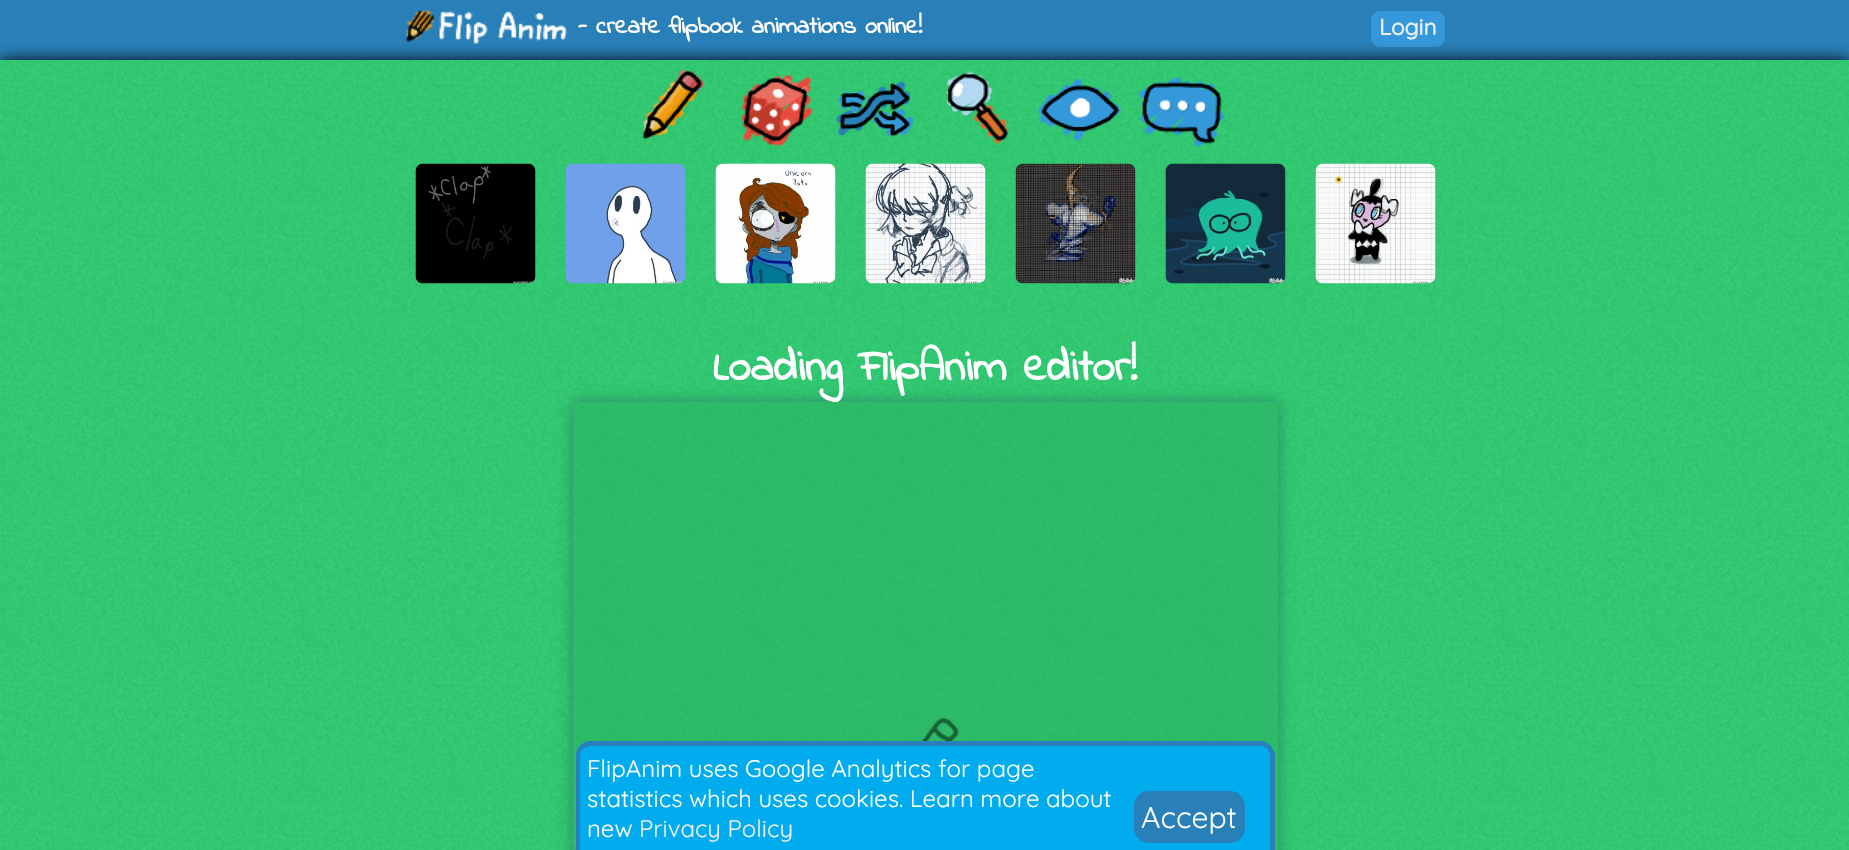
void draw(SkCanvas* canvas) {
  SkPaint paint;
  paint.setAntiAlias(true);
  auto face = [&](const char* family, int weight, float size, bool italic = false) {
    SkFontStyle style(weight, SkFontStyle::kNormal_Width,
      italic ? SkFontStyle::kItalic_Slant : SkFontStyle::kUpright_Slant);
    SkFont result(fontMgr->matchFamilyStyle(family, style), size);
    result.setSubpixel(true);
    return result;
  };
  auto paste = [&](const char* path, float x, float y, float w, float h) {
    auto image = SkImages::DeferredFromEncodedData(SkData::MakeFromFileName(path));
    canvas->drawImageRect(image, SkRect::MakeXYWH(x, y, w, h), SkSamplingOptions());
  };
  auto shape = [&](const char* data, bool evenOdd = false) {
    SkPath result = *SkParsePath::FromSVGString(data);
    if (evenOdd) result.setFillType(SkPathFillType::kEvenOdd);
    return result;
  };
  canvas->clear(0xff2980b9);
  paste("img/1.png", 406, 10, 162, 34);
  paint.setColor(0xff3498db);
  canvas->drawRoundRect(SkRect::MakeXYWH(1369.5f, 9.5f, 77, 39), 10.5f, 10.5f, paint);
  paint.setStroke(true);
  paint.setStrokeWidth(3);
  paint.setColor(0xff2980b9);
  canvas->drawRoundRect(SkRect::MakeXYWH(1369.5f, 9.5f, 77, 39), 10.5f, 10.5f, paint);
  paint.setStroke(false);
  paint.setColor(0xff000000);
  paint.setMaskFilter(SkMaskFilter::MakeBlur(kNormal_SkBlurStyle, 7.5f));
  canvas->drawRect(SkRect::MakeXYWH(0, 60, 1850, 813), paint);
  paint.setMaskFilter(nullptr);
  paint.setColor(0xff2ecc71);
  canvas->drawRect(SkRect::MakeXYWH(0, 60, 1849, 790), paint);
  paste("img/2.png", 0, 60, 1849, 790);
  paste("img/3.png", 642, 70, 63, 70);
  paste("img/4.png", 741, 74, 73, 72);
  paste("img/5.png", 835, 80, 79, 57);
  paste("img/6.png", 946, 71, 62, 73);
  paste("img/7.png", 1037, 78, 84, 63);
  paste("img/8.png", 1138, 76, 86, 72);
  paste("img/9.png", 415, 163, 121, 121);
  paste("img/10.png", 565, 163, 121, 121);
  paste("img/11.png", 715, 163, 121, 121);
  paste("img/12.png", 865, 163, 121, 121);
  paste("img/13.png", 1015, 163, 121, 121);
  paste("img/14.png", 1165, 163, 121, 121);
  paste("img/15.png", 1315, 163, 121, 121);
  canvas->save();
  canvas->clipPath(shape("M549 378H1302V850H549ZM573 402H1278V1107H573Z", true), true);
  paint.setColor(0xff248b67);
  paint.setMaskFilter(SkMaskFilter::MakeBlur(kNormal_SkBlurStyle, 7.5f));
  canvas->drawRect(SkRect::MakeXYWH(573, 402, 705, 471), paint);
  paint.setMaskFilter(nullptr);
  canvas->restore();
  paint.setColor(0x8027ae60);
  canvas->drawRect(SkRect::MakeXYWH(573, 402, 705, 448), paint);
  paste("img/16.png", 921, 717, 38, 24);
  paint.setColor(0xff00aced);
  canvas->drawPath(shape("M591 741H1260C1268.5 741 1275 747.5 1275 756V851H576V756C576 747.5 582.5 741 591 741Z"), paint);
  paint.setColor(0xff2980b9);
  canvas->drawPath(shape("M591 741H1260C1268 741 1275 748 1275 756V850H576V756C576 748 583 741 591 741ZM591 746H1260C1266 746 1270 750 1270 756V850H580V756C580 750 585 746 591 746Z", true), paint);
  canvas->drawRoundRect(SkRect::MakeXYWH(1134, 791, 111, 52), 15, 15, paint);
  auto f0 = face("Indie Flower", 700, 24);
  paint.setColor(0xffffffff);
  canvas->drawString("- create flipbook animations online!", 578, 33, f0, paint);
  auto f1 = face("Quicksand", 700, 22.5f);
  paint.setColor(0xffecf0f1);
  canvas->drawString("Login", 1379, 35, f1, paint);
  auto f2 = face("Indie Flower", 700, 45);
  paint.setColor(0xffffffff);
  canvas->drawString("Loading FlipAnim editor!", 713, 380, f2, paint);
  auto f3 = face("Quicksand", 300, 24);
  {
    const struct { const char* s; float x, y; } items[] = {
      {"FlipAnim uses Google Analytics for page", 587, 777},
      {"statistics which uses cookies. Learn more about", 587, 807},
      {"new", 587, 837},
    };
    for (auto [s, x, y] : items) {
      canvas->drawString(s, x, y, f3, paint);
    }
  }
  paint.setColor(0xffecf0f1);
  canvas->drawString("Privacy Policy", 639, 837, f3, paint);
  auto f4 = face("Quicksand", 300, 30);
  paint.setColor(0xffffffff);
  canvas->drawString("Accept", 1141, 828, f4, paint);
}
